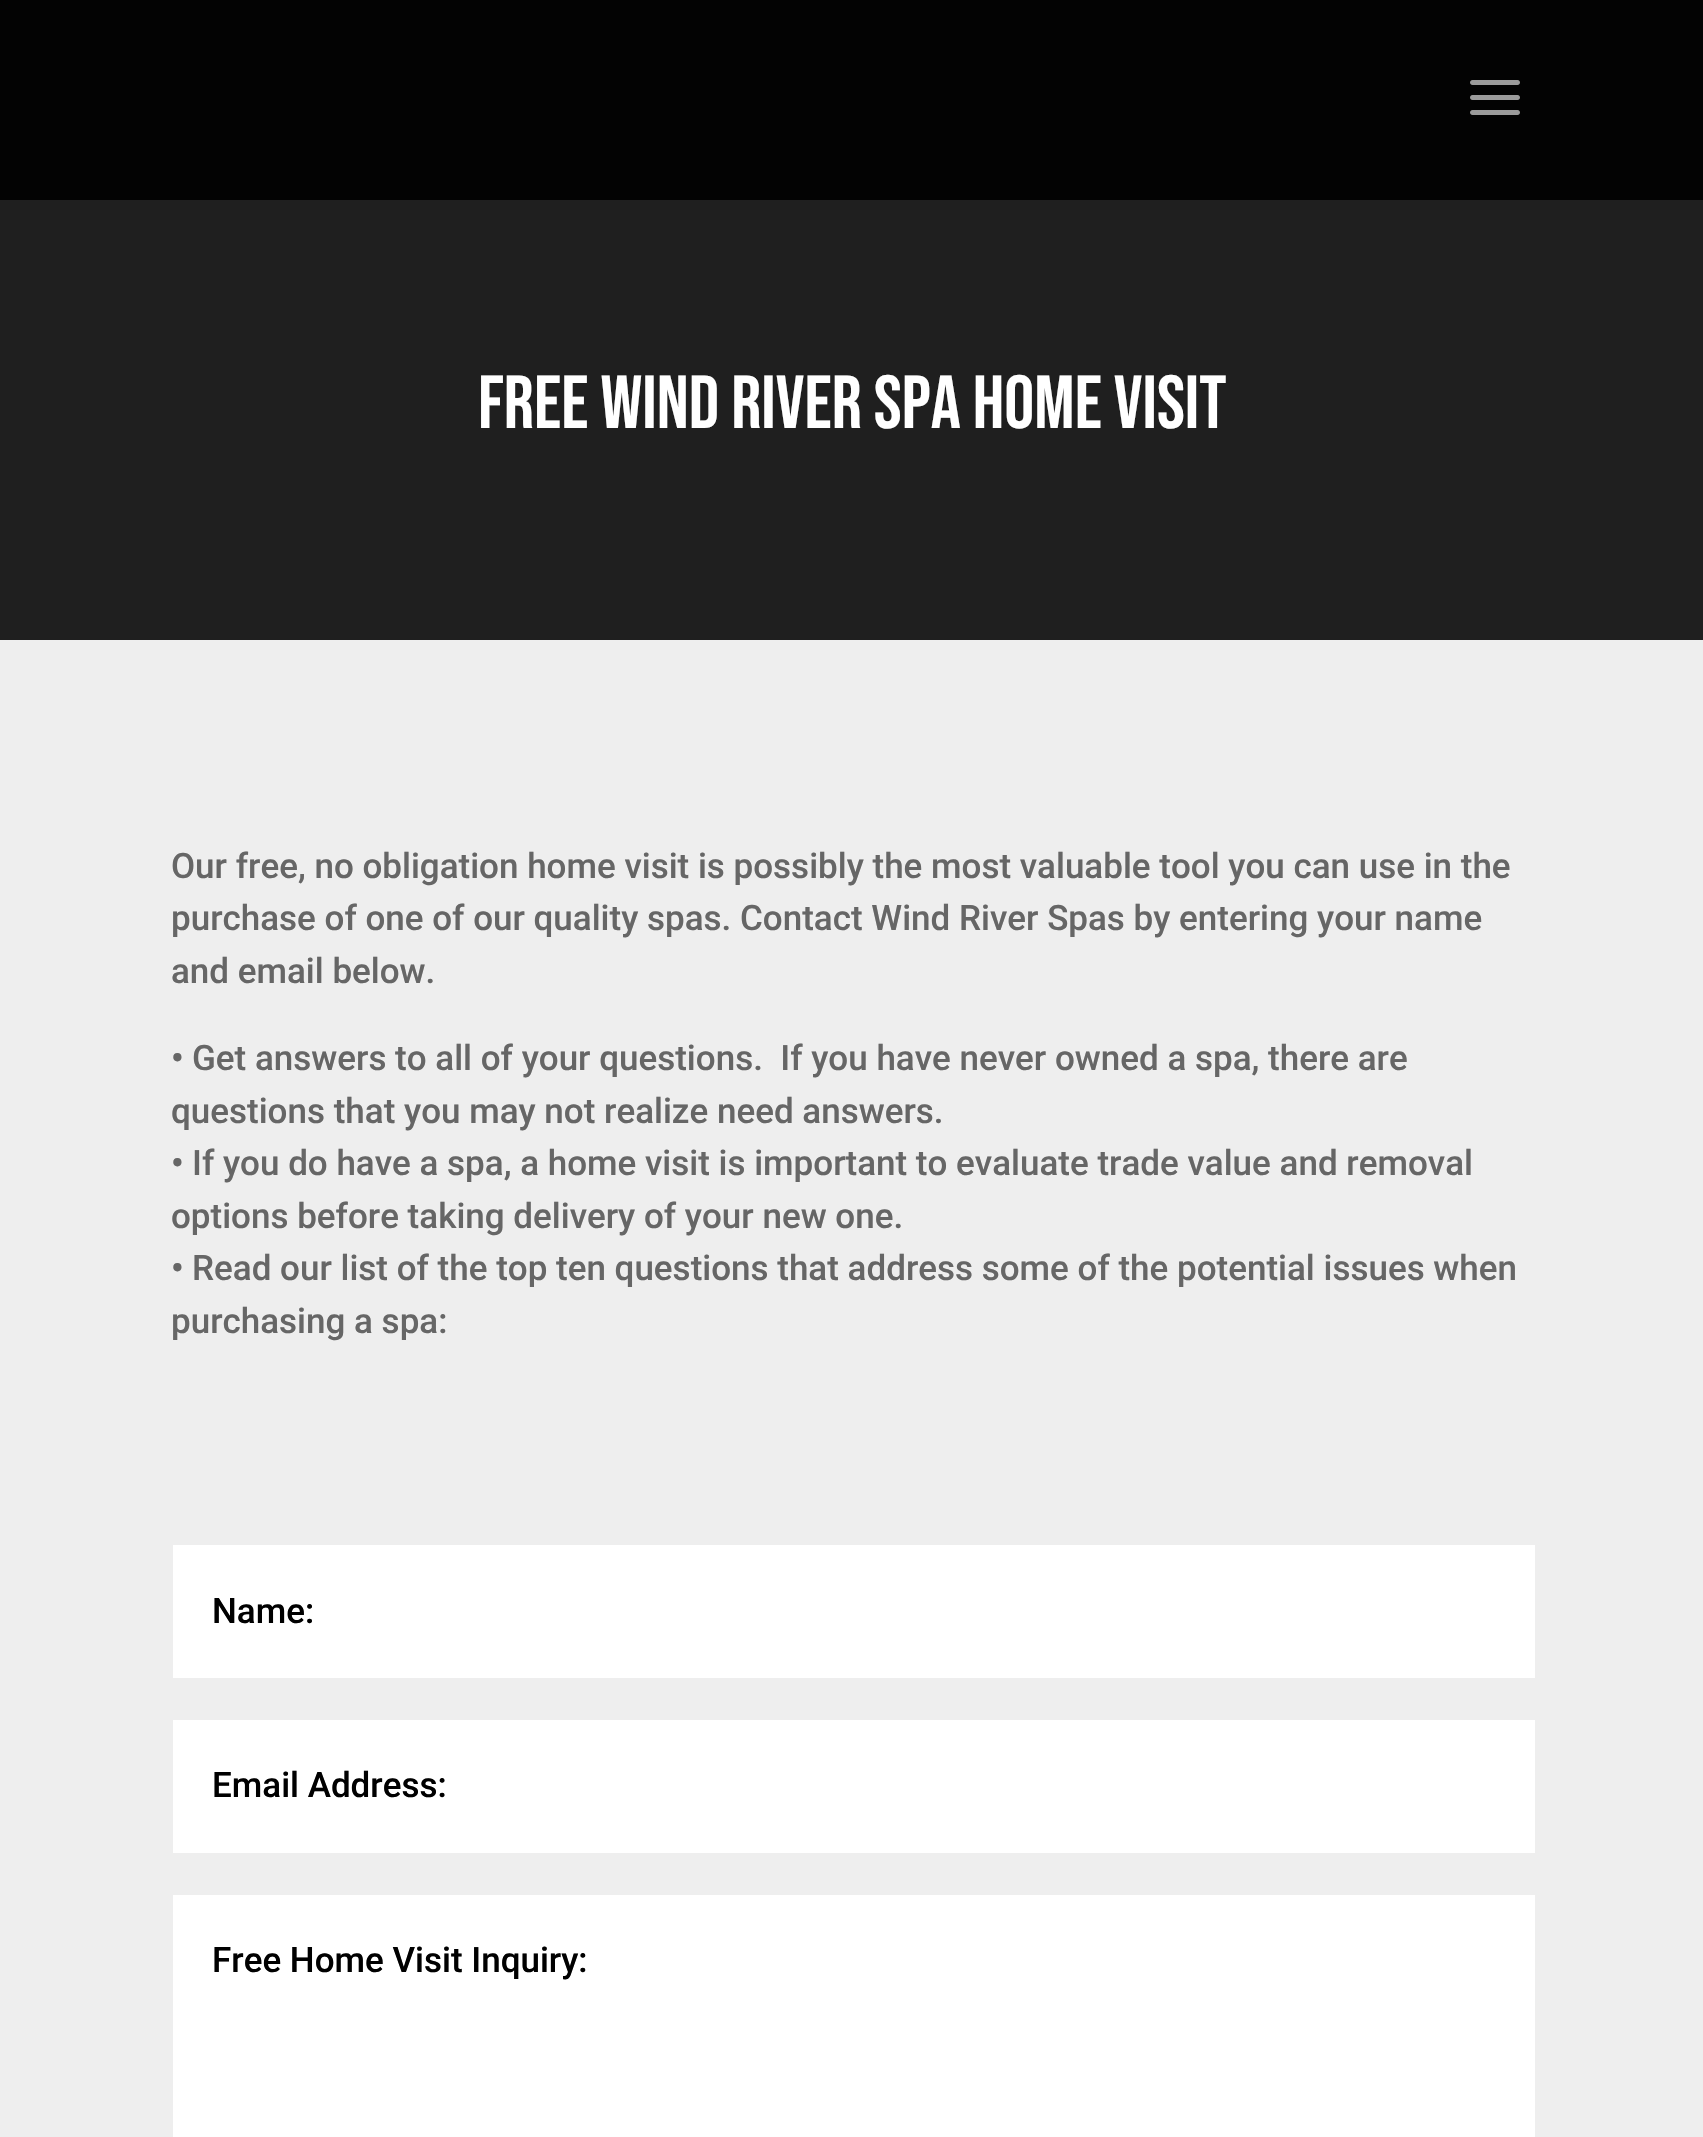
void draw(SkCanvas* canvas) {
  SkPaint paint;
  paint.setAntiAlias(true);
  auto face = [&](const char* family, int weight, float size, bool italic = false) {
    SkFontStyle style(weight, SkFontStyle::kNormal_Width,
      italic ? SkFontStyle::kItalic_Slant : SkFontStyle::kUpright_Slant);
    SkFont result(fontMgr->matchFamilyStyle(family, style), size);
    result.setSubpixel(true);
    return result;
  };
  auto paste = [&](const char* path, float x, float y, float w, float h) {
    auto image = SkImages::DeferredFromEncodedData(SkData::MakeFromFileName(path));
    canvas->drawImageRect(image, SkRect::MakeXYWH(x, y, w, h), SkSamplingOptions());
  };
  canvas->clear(0xff1f1f1f);
  paint.setColor(0xff030303);
  canvas->drawRect(SkRect::MakeXYWH(0, 0, 1703, 200), paint);
  paste("img/1.png", 1470, 80, 50, 35);
  {
    const struct { float x, y, w, h; SkColor color; } items[] = {
      {0, 640, 1703, 1497, 0xffeeeeee},
      {173, 1545, 1362, 133, 0xffffffff},
      {173, 1720, 1362, 133, 0xffffffff},
      {173, 1895, 1362, 242, 0xffffffff},
    };
    for (auto [x, y, w, h, color] : items) {
      paint.setColor(color);
      canvas->drawRect(SkRect::MakeXYWH(x, y, w, h), paint);
    }
  }
  auto f0 = face("Bebas Neue", 400, 75);
  canvas->drawString("FREE Wind River Spa Home Visit", 478, 428, f0, paint);
  auto f1 = face("Roboto", 500, 35);
  paint.setColor(0xff666666);
  {
    const struct { const char* s; float x, y; } items[] = {
      {"Our free, no obligation home visit is possibly the most valuable tool you can use in the", 171, 878},
      {"purchase of one of our quality spas. Contact Wind River Spas by entering your name", 171, 930},
      {"and email below.", 171, 983},
    };
    for (auto [s, x, y] : items) {
      canvas->drawString(s, x, y, f1, paint);
    }
  }
  auto f2 = face("Roboto", 700, 35);
  canvas->drawString("•", 171, 1070, f2, paint);
  canvas->drawString("Get answers to all of your questions.  If you have never owned a spa, there are", 192, 1070, f1, paint);
  canvas->drawString("questions that you may not realize need answers.", 171, 1123, f1, paint);
  canvas->drawString("•", 171, 1175, f2, paint);
  canvas->drawString("If you do have a spa, a home visit is important to evaluate trade value and removal", 192, 1175, f1, paint);
  canvas->drawString("options before taking delivery of your new one.", 171, 1228, f1, paint);
  canvas->drawString("•", 171, 1280, f2, paint);
  canvas->drawString("Read our list of the top ten questions that address some of the potential issues when", 192, 1280, f1, paint);
  canvas->drawString("purchasing a spa:", 171, 1333, f1, paint);
  paint.setColor(0xff000000);
  {
    const struct { const char* s; float x, y; } items[] = {
      {"Name:", 212, 1623},
      {"Email Address:", 212, 1797},
      {"Free Home Visit Inquiry:", 212, 1972},
    };
    for (auto [s, x, y] : items) {
      canvas->drawString(s, x, y, f1, paint);
    }
  }
}
